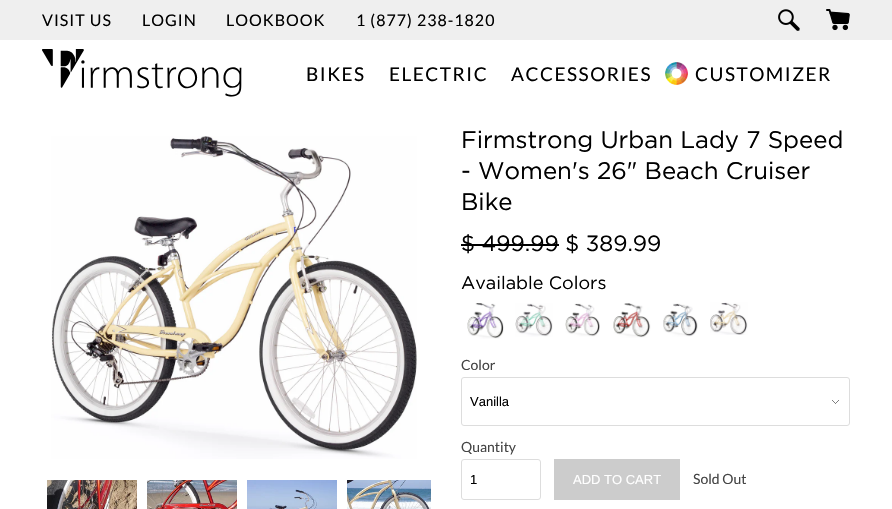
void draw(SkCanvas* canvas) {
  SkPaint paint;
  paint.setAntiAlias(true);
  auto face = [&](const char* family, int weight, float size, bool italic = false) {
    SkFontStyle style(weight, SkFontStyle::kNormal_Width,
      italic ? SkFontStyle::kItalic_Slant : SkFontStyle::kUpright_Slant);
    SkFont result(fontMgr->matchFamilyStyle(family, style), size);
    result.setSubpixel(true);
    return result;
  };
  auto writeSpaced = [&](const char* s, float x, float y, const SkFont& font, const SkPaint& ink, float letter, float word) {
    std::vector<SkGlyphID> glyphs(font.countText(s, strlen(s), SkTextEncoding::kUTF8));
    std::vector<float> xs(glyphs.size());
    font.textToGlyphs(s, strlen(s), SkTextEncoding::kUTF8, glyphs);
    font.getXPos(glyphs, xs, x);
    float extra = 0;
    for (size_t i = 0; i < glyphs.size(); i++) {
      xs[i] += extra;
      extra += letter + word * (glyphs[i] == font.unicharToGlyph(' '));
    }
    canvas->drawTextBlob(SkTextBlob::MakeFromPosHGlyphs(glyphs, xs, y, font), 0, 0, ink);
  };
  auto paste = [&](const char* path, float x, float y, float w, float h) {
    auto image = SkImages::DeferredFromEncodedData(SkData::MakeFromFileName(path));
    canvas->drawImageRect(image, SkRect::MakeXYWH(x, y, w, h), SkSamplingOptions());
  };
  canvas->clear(0xffffffff);
  paint.setColor(0xffefefef);
  canvas->drawRect(SkRect::MakeXYWH(0, 0, 892, 40), paint);
  paste("img/1.png", 778, 9, 22, 22);
  paste("img/2.png", 826, 9, 24, 22);
  paste("img/3.png", 42, 49, 200, 48);
  paste("img/4.png", 665, 62, 23, 23);
  paste("img/5.png", 51, 136, 366, 323);
  paste("img/6.png", 47, 480, 90, 29);
  paste("img/7.png", 147, 480, 90, 29);
  paste("img/8.png", 247, 480, 90, 29);
  paste("img/9.png", 347, 480, 84, 29);
  paint.setColor(0xff000000);
  canvas->drawRect(SkRect::MakeXYWH(461, 244, 98, 2), paint);
  paste("img/10.png", 467, 303, 37, 36);
  paste("img/11.png", 515, 303, 38, 34);
  paste("img/12.png", 565, 303, 35, 34);
  paste("img/13.png", 613, 303, 38, 35);
  paste("img/14.png", 663, 303, 35, 34);
  paste("img/15.png", 710, 302, 38, 33);
  paste("img/16.png", 832, 400, 7, 4);
  paint.setStroke(true);
  paint.setStrokeWidth(1);
  paint.setColor(0xffdddddd);
  canvas->drawRoundRect(SkRect::MakeXYWH(461.5f, 377.5f, 388, 48), 2.5f, 2.5f, paint);
  canvas->drawRoundRect(SkRect::MakeXYWH(461.5f, 459.5f, 79, 40), 2.5f, 2.5f, paint);
  paint.setStroke(false);
  paint.setColor(0xffcccccc);
  canvas->drawRect(SkRect::MakeXYWH(554, 459, 126, 41), paint);
  auto f0 = face("Lato", 400, 16);
  paint.setColor(0xff000000);
  {
    const struct { const char* s; float x, y; } items[] = {
      {"VISIT US", 42, 26},
      {"LOGIN", 142, 26},
      {"LOOKBOOK", 226, 26},
      {"1 (877) 238-1820", 356, 26},
    };
    for (auto [s, x, y] : items) {
      writeSpaced(s, x, y, f0, paint, 1, 0);
    }
  }
  auto f1 = face("Lato", 400, 19);
  {
    const struct { const char* s; float x, y; } items[] = {
      {"BIKES", 306, 81},
      {"ELECTRIC", 389, 81},
      {"ACCESSORIES", 511, 81},
      {"CUSTOMIZER", 695, 81},
    };
    for (auto [s, x, y] : items) {
      writeSpaced(s, x, y, f1, paint, 1.5f, 0);
    }
  }
  auto f2 = face("Gotham", 400, 24);
  {
    const struct { const char* s; float x, y; } items[] = {
      {"Firmstrong Urban Lady 7 Speed", 461, 148},
      {"- Women's 26\" Beach Cruiser", 461, 179},
      {"Bike", 461, 210},
    };
    for (auto [s, x, y] : items) {
      canvas->drawString(s, x, y, f2, paint);
    }
  }
  auto f3 = face("Gotham", 400, 22);
  canvas->drawString("$ 499.99 $ 389.99", 461, 251, f3, paint);
  auto f4 = face("Gotham", 400, 18);
  canvas->drawString("Available Colors", 461, 289, f4, paint);
  auto f5 = face("Lato", 400, 14);
  paint.setColor(0xff444444);
  canvas->drawString("Color", 461, 370, f5, paint);
  auto f6 = face("Liberation Sans", 400, 13);
  paint.setColor(0xff000000);
  canvas->drawString("Vanilla", 470, 406, f6, paint);
  paint.setColor(0xff444444);
  canvas->drawString("Quantity", 461, 452, f5, paint);
  paint.setColor(0xff000000);
  canvas->drawString("1", 470, 484, f6, paint);
  paint.setColor(0xffffffff);
  canvas->drawString("ADD TO CART", 573, 484, f6, paint);
  paint.setColor(0xff444444);
  canvas->drawString("Sold Out", 693, 484, f5, paint);
}
